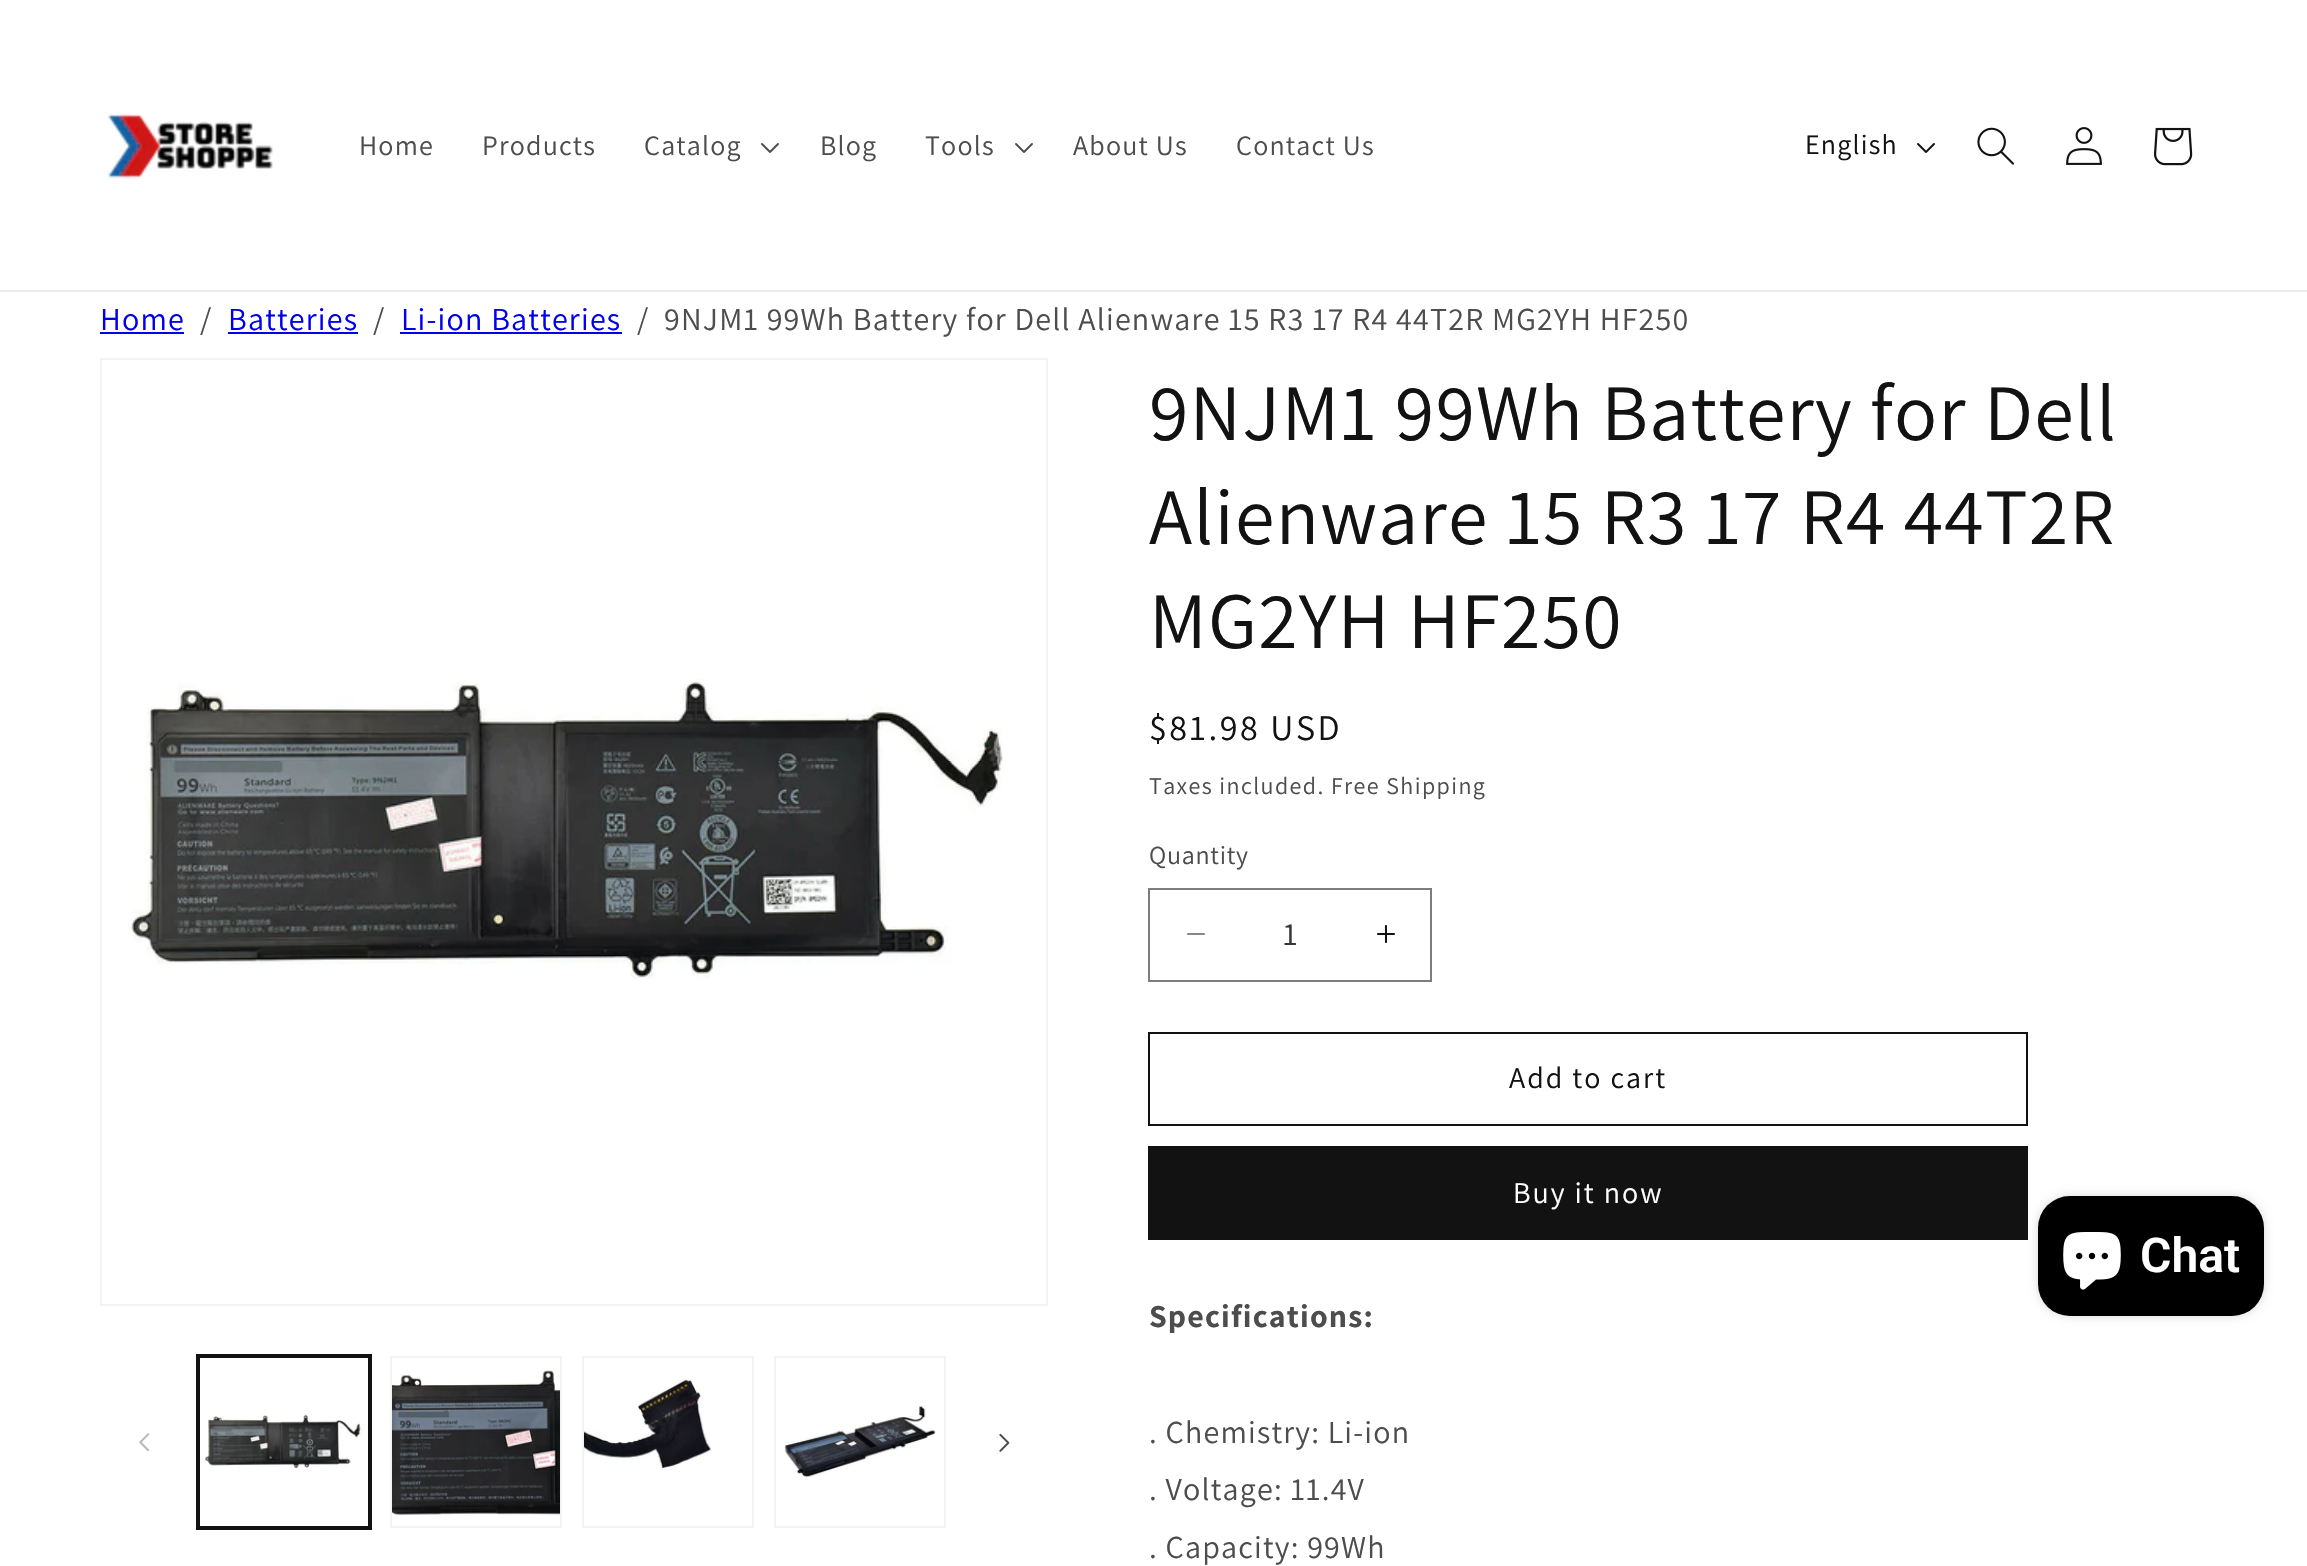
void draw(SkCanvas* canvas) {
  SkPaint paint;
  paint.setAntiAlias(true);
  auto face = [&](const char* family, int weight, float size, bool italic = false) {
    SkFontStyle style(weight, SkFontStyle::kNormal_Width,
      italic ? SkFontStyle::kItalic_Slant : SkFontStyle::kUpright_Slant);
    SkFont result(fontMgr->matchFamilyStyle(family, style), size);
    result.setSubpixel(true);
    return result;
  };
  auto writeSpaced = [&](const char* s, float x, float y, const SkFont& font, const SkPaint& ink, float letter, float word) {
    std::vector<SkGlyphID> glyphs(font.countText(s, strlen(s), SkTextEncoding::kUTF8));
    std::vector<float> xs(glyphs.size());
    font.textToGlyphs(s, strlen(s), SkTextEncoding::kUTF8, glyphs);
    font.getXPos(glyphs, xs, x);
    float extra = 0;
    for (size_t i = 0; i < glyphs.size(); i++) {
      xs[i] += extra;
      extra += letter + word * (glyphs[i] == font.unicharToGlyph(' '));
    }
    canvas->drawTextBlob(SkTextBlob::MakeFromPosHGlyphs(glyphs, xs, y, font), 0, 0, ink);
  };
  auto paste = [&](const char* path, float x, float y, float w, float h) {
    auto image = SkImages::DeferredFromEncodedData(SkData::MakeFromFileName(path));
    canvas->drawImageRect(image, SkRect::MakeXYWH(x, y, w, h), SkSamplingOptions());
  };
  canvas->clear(0xffffffff);
  paint.setColor(0xffececec);
  canvas->drawRect(SkRect::MakeXYWH(0, 290, 2307, 2), paint);
  paste("img/1.png", 107, 113, 166, 66);
  paste("img/2.png", 761, 143, 18, 10);
  paste("img/2.png", 1015, 143, 18, 10);
  paste("img/3.png", 1917, 143, 18, 10);
  paste("img/4.png", 1977, 127, 37, 38);
  paste("img/5.png", 2066, 127, 36, 38);
  paste("img/6.png", 2154, 127, 39, 39);
  {
    const struct { float x, y, w, h; SkColor color; } items[] = {
      {100, 332, 84, 2, 0xff0000ee},
      {228, 332, 130, 2, 0xff0000ee},
      {400, 332, 222, 2, 0xff0000ee},
    };
    for (auto [x, y, w, h, color] : items) {
      paint.setColor(color);
      canvas->drawRect(SkRect::MakeXYWH(x, y, w, h), paint);
    }
  }
  paint.setStroke(true);
  paint.setStrokeWidth(2);
  paint.setColor(0xfff3f3f3);
  canvas->drawRect(SkRect::MakeXYWH(101, 359, 946, 946), paint);
  paste("img/7.png", 128, 678, 875, 301);
  paste("img/8.png", 139, 1433, 11, 19);
  paint.setColor(0xff121212);
  canvas->drawRect(SkRect::MakeXYWH(197, 1355, 174, 174), paint);
  canvas->drawRect(SkRect::MakeXYWH(199, 1357, 170, 170), paint);
  paste("img/9.png", 205, 1413, 157, 55);
  paint.setColor(0xfff3f3f3);
  canvas->drawRect(SkRect::MakeXYWH(391, 1357, 170, 170), paint);
  paste("img/10.png", 392, 1370, 168, 145);
  canvas->drawRect(SkRect::MakeXYWH(583, 1357, 170, 170), paint);
  paste("img/11.png", 584, 1379, 127, 91);
  canvas->drawRect(SkRect::MakeXYWH(775, 1357, 170, 170), paint);
  paste("img/12.png", 784, 1405, 152, 73);
  paste("img/13.png", 999, 1433, 11, 19);
  paste("img/14.png", 1187, 933, 18, 2);
  paste("img/15.png", 1377, 925, 18, 18);
  paint.setColor(0xff7d7d7d);
  canvas->drawRect(SkRect::MakeXYWH(1149, 889, 282, 92), paint);
  paint.setColor(0xff121212);
  canvas->drawRect(SkRect::MakeXYWH(1149, 1033, 878, 92), paint);
  paint.setStroke(false);
  canvas->drawRect(SkRect::MakeXYWH(1148, 1146, 880, 94), paint);
  paint.setColor(0x26000000);
  paint.setMaskFilter(SkMaskFilter::MakeBlur(kNormal_SkBlurStyle, 5));
  canvas->drawRoundRect(SkRect::MakeXYWH(2038, 1196, 226, 120), 32, 32, paint);
  paint.setMaskFilter(nullptr);
  paint.setColor(0xff000000);
  canvas->drawRoundRect(SkRect::MakeXYWH(2038, 1196, 226, 120), 32, 32, paint);
  paste("img/16.png", 2063, 1232, 58, 58);
  auto f0 = face("Assistant", 400, 28);
  paint.setColor(0xff4d4d4d);
  {
    const struct { const char* s; float x, y; } items[] = {
      {"Home", 359, 155},
      {"Products", 482, 155},
      {"Catalog", 644, 155},
      {"Blog", 820, 155},
      {"Tools", 925, 155},
      {"About Us", 1073, 155},
      {"Contact Us", 1236, 155},
    };
    for (auto [s, x, y] : items) {
      writeSpaced(s, x, y, f0, paint, 1.2f, 0);
    }
  }
  paint.setColor(0xff121212);
  writeSpaced("English", 1805, 154, f0, paint, 1.2f, 0);
  auto f1 = face("Assistant", 400, 32);
  paint.setColor(0xff0000ee);
  writeSpaced("Home", 100, 330, f1, paint, 1.2f, 0);
  paint.setColor(0xff4d4d4d);
  writeSpaced("/", 200, 330, f1, paint, 1.2f, 0);
  paint.setColor(0xff0000ee);
  writeSpaced("Batteries", 228, 330, f1, paint, 1.2f, 0);
  paint.setColor(0xff4d4d4d);
  writeSpaced("/", 373, 330, f1, paint, 1.2f, 0);
  paint.setColor(0xff0000ee);
  writeSpaced("Li-ion Batteries", 401, 330, f1, paint, 1.2f, 0);
  paint.setColor(0xff4d4d4d);
  writeSpaced("/", 637, 330, f1, paint, 1.2f, 0);
  writeSpaced("9NJM1 99Wh Battery for Dell Alienware 15 R3 17 R4 44T2R MG2YH HF250", 664, 330, f1, paint, 1.2f, 0);
  auto f2 = face("Assistant", 400, 80);
  paint.setColor(0xff121212);
  {
    const struct { const char* s; float x, y; } items[] = {
      {"9NJM1 99Wh Battery for Dell", 1149, 440},
      {"Alienware 15 R3 17 R4 44T2R", 1149, 544},
      {"MG2YH HF250", 1149, 648},
    };
    for (auto [s, x, y] : items) {
      writeSpaced(s, x, y, f2, paint, 1.2f, 0);
    }
  }
  auto f3 = face("Assistant", 400, 36);
  writeSpaced("$81.98 USD", 1149, 740, f3, paint, 2.6f, 0);
  auto f4 = face("Assistant", 400, 24);
  paint.setColor(0xff4d4d4d);
  writeSpaced("Taxes included. Free Shipping", 1149, 794, f4, paint, 1.4f, 0);
  auto f5 = face("Assistant", 400, 26);
  writeSpaced("Quantity", 1149, 864, f5, paint, 0.75f, 0);
  paint.setColor(0xff363636);
  canvas->drawString("1", 1283, 945, f1, paint);
  auto f6 = face("Assistant", 400, 30);
  paint.setColor(0xff121212);
  writeSpaced("Add to cart", 1509, 1088, f6, paint, 2, 0);
  paint.setColor(0xffffffff);
  writeSpaced("Buy it now", 1513, 1203, f6, paint, 2, 0);
  auto f7 = face("Assistant", 700, 32);
  paint.setColor(0xff4d4d4d);
  writeSpaced("Specifications:", 1149, 1327, f7, paint, 1.2f, 0);
  {
    const struct { const char* s; float x, y; } items[] = {
      {". Chemistry: Li-ion", 1149, 1443},
      {". Voltage: 11.4V", 1149, 1500},
      {". Capacity: 99Wh", 1149, 1558},
    };
    for (auto [s, x, y] : items) {
      writeSpaced(s, x, y, f1, paint, 1.2f, 0);
    }
  }
  auto f8 = face("Roboto", 600, 48);
  paint.setColor(0xffffffff);
  canvas->drawString("Chat", 2140, 1272, f8, paint);
}
